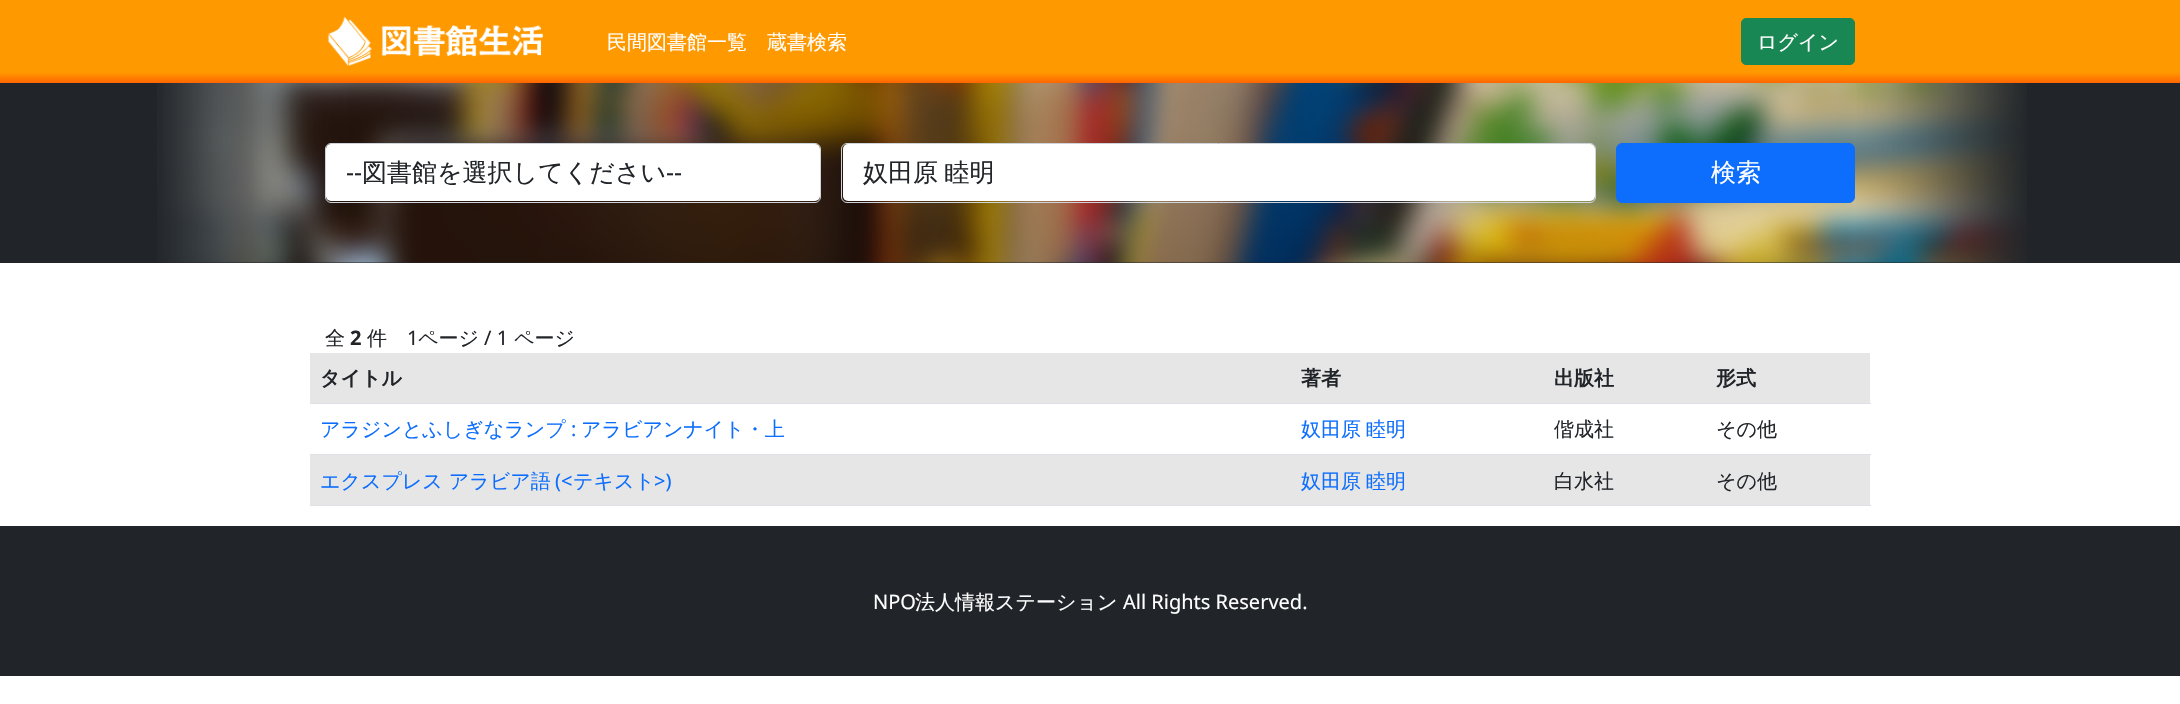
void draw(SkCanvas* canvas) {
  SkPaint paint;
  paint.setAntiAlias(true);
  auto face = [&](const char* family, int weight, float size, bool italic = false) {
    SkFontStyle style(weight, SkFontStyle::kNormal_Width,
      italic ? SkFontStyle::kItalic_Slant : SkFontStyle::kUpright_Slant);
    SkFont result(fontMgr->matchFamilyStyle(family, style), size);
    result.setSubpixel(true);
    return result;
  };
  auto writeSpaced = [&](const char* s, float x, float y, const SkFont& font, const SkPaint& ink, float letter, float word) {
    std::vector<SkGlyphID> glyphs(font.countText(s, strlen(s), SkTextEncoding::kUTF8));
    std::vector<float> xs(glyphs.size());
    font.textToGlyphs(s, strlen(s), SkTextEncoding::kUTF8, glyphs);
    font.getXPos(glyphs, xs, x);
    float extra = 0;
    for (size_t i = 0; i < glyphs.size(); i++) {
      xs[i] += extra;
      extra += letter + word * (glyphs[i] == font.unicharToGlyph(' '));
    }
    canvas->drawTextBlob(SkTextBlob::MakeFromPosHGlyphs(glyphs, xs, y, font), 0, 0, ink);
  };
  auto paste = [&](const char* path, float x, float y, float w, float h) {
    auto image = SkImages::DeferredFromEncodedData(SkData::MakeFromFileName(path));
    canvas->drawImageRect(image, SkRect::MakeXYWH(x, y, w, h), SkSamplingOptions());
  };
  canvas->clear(0xffffffff);
  {
    const SkColor colors[] = {0xffff9900, 0xffff9900, 0xffff6600};
    const float stops[] = {0, 0.87f, 1};
    const SkPoint ends[] = {{1090, 0}, {1090, 83}};
    paint.setShader(SkGradientShader::MakeLinear(ends, colors, stops, 3, SkTileMode::kClamp));
    paint.setAlpha(255);
  }
  canvas->drawRect(SkRect::MakeXYWH(0, 0, 2180, 83), paint);
  paste("img/1.png", 327, 16, 216, 50);
  paint.setShader(nullptr);
  paint.setColor(0xff198754);
  canvas->drawRoundRect(SkRect::MakeXYWH(1741.5f, 18.5f, 113, 46), 4.5f, 4.5f, paint);
  paint.setStroke(true);
  paint.setStrokeWidth(1);
  canvas->drawRoundRect(SkRect::MakeXYWH(1741.5f, 18.5f, 113, 46), 4.5f, 4.5f, paint);
  paint.setStroke(false);
  paint.setColor(0xff212529);
  canvas->drawRect(SkRect::MakeXYWH(0, 83, 2180, 180), paint);
  paste("img/2.png", 157, 83, 1870, 180);
  paint.setColor(0xffffffff);
  canvas->drawRoundRect(SkRect::MakeXYWH(326, 144, 494, 57), 5, 5, paint);
  paint.setStroke(true);
  paint.setColor(0xffced4da);
  canvas->drawRoundRect(SkRect::MakeXYWH(325.5f, 143.5f, 495, 59), 5.5f, 5.5f, paint);
  paint.setStroke(false);
  paint.setColor(0xffffffff);
  canvas->drawRoundRect(SkRect::MakeXYWH(843, 144, 752, 57), 5, 5, paint);
  paint.setStroke(true);
  paint.setColor(0xffced4da);
  canvas->drawRoundRect(SkRect::MakeXYWH(841.5f, 143.5f, 754, 59), 5.5f, 5.5f, paint);
  paint.setStroke(false);
  paint.setColor(0xff0d6efd);
  canvas->drawRoundRect(SkRect::MakeXYWH(1616.5f, 143.5f, 238, 59), 5.5f, 5.5f, paint);
  paint.setStroke(true);
  canvas->drawRoundRect(SkRect::MakeXYWH(1616.5f, 143.5f, 238, 59), 5.5f, 5.5f, paint);
  paint.setStroke(false);
  {
    const struct { float x, y, w, h; SkColor color; } items[] = {
      {310, 353, 1560, 50, 0xffe6e6e6},
      {310, 403, 1561, 1, 0xffdee2e6},
      {310, 454, 1561, 1, 0xffdee2e6},
      {310, 455, 1560, 50, 0xffe6e6e6},
      {310, 505, 1561, 1, 0xffdee2e6},
      {0, 526, 2180, 150, 0xff212529},
    };
    for (auto [x, y, w, h, color] : items) {
      paint.setColor(color);
      canvas->drawRect(SkRect::MakeXYWH(x, y, w, h), paint);
    }
  }
  auto f0 = face("WenQuanYi Zen Hei", 500, 20);
  paint.setColor(0xffffffff);
  {
    const struct { const char* s; float x, y; } items[] = {
      {"民間図書館一覧", 607, 49},
      {"蔵書検索", 767, 49},
      {"ログイン", 1757, 49},
    };
    for (auto [s, x, y] : items) {
      canvas->drawString(s, x, y, f0, paint);
    }
  }
  auto f1 = face("Noto Sans", 400, 25);
  paint.setColor(0xff212529);
  canvas->drawString("--", 346, 181, f1, paint);
  auto f2 = face("WenQuanYi Zen Hei", 500, 25);
  canvas->drawString("図書館を選択してください", 362, 181, f2, paint);
  canvas->drawString("--", 666, 181, f1, paint);
  writeSpaced("奴田原 睦明", 863, 181, f2, paint, 0, -1);
  paint.setColor(0xffffffff);
  canvas->drawString("検索", 1711, 181, f2, paint);
  paint.setColor(0xff212529);
  canvas->drawString("全", 325, 345, f0, paint);
  auto f3 = face("Noto Sans", 700, 20);
  canvas->drawString("2", 350, 345, f3, paint);
  canvas->drawString("件", 367, 345, f0, paint);
  auto f4 = face("Noto Sans", 400, 20);
  canvas->drawString("1", 407, 345, f4, paint);
  canvas->drawString("ページ", 418, 345, f0, paint);
  canvas->drawString("/ 1", 484, 345, f4, paint);
  canvas->drawString("ページ", 514, 345, f0, paint);
  auto f5 = face("WenQuanYi Zen Hei", 700, 20);
  {
    const struct { const char* s; float x, y; } items[] = {
      {"タイトル", 320, 385},
      {"著者", 1301, 385},
      {"出版社", 1554, 385},
      {"形式", 1716, 385},
    };
    for (auto [s, x, y] : items) {
      canvas->drawString(s, x, y, f5, paint);
    }
  }
  paint.setColor(0xff0d6efd);
  canvas->drawString("アラジンとふしぎなランプ", 320, 436, f0, paint);
  canvas->drawString(":", 571, 436, f4, paint);
  canvas->drawString("アラビアンナイト・上", 581, 436, f0, paint);
  writeSpaced("奴田原 睦明", 1301, 436, f0, paint, 0, -1);
  paint.setColor(0xff212529);
  canvas->drawString("偕成社", 1554, 436, f0, paint);
  canvas->drawString("その他", 1716, 436, f0, paint);
  paint.setColor(0xff0d6efd);
  canvas->drawString("エクスプレス アラビア語", 320, 488, f0, paint);
  canvas->drawString("(<", 555, 488, f4, paint);
  canvas->drawString("テキスト", 573, 488, f0, paint);
  canvas->drawString(">)", 654, 488, f4, paint);
  writeSpaced("奴田原 睦明", 1301, 488, f0, paint, 0, -1);
  paint.setColor(0xff212529);
  canvas->drawString("白水社", 1554, 488, f0, paint);
  canvas->drawString("その他", 1716, 488, f0, paint);
  paint.setColor(0xffffffff);
  canvas->drawString("NPO", 873, 609, f4, paint);
  canvas->drawString("法人情報ステーション", 915, 609, f0, paint);
  canvas->drawString("All Rights Reserved.", 1123, 609, f4, paint);
}
